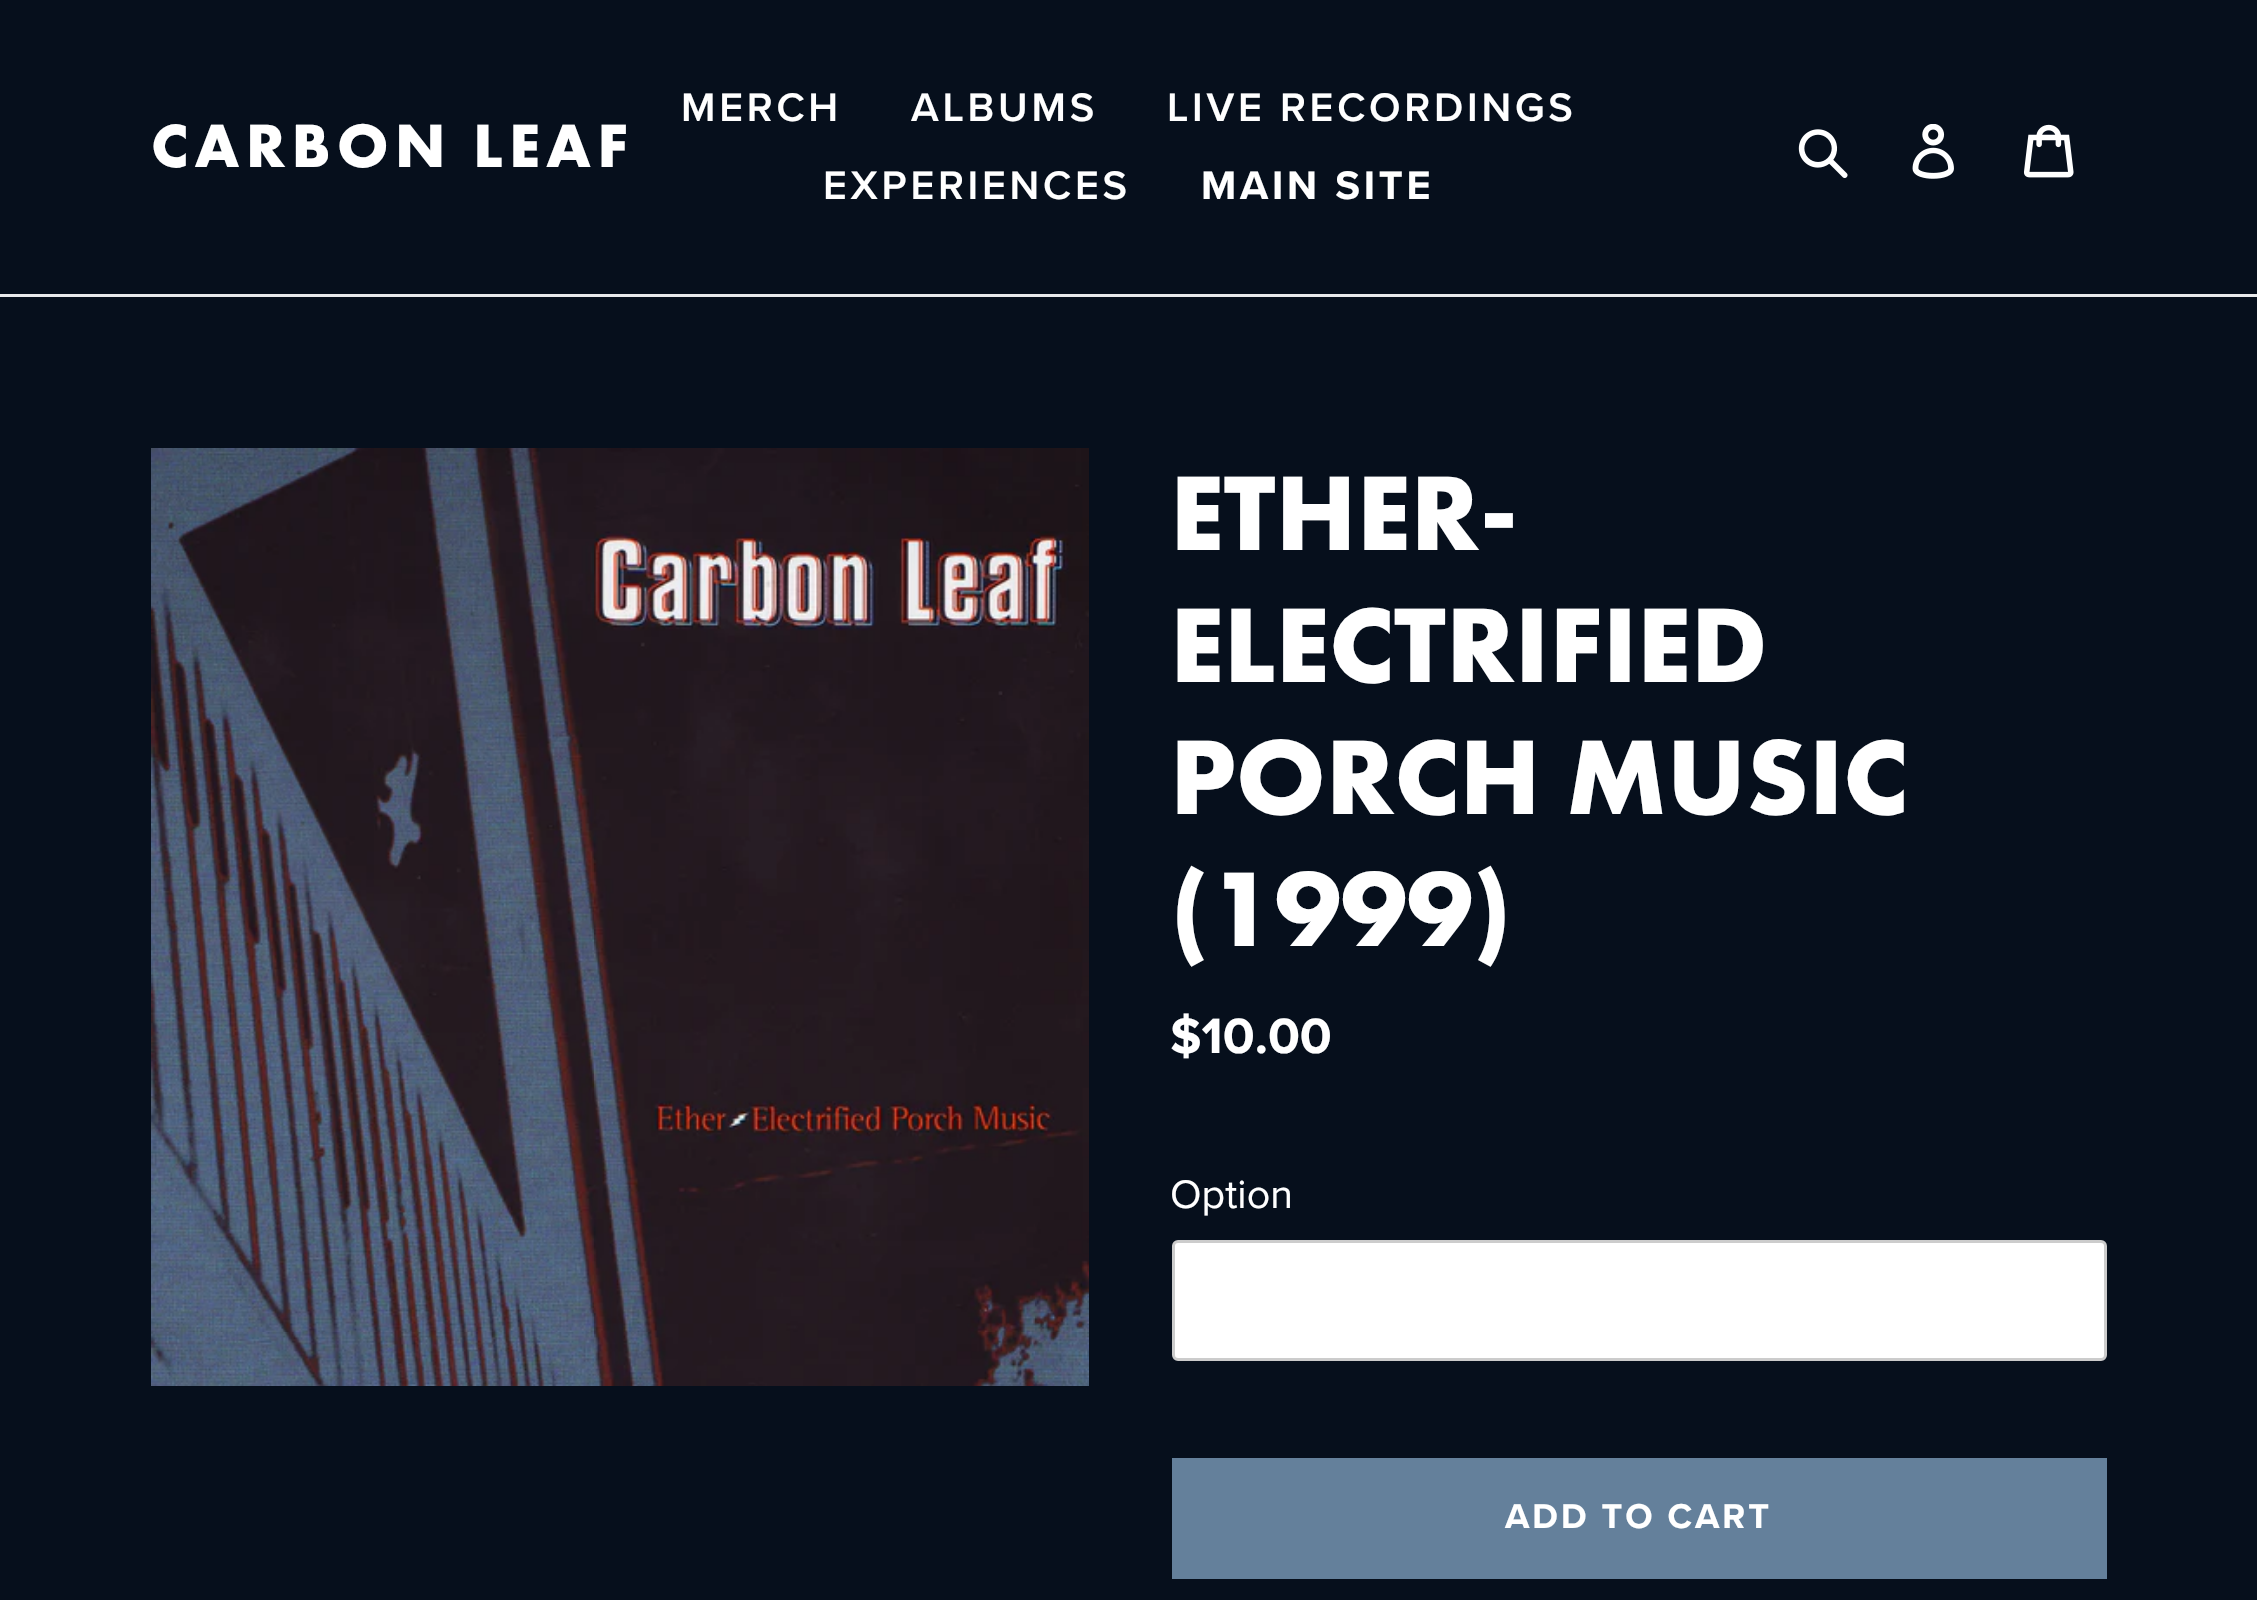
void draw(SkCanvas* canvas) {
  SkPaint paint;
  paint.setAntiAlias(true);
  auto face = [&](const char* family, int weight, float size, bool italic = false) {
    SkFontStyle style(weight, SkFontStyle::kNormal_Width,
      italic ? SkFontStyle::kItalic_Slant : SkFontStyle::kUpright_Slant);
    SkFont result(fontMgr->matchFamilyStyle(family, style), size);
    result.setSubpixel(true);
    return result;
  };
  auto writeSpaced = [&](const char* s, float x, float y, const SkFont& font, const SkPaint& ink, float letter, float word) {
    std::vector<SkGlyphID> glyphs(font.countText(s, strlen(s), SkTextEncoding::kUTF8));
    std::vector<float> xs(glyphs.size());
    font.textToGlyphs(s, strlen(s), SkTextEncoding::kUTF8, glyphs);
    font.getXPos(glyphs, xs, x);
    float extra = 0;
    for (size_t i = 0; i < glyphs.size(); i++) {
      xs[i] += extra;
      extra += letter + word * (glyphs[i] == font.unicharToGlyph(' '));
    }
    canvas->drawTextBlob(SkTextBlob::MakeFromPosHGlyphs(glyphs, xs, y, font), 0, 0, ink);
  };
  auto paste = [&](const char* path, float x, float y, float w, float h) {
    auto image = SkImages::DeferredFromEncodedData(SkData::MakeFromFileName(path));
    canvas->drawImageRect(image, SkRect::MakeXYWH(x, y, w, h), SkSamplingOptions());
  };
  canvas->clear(0xff060f1c);
  paint.setColor(0xffe8e9eb);
  canvas->drawRect(SkRect::MakeXYWH(0, 294, 2257, 3), paint);
  paste("img/1.png", 1798, 129, 50, 49);
  paste("img/2.png", 1912, 124, 42, 55);
  paste("img/3.png", 2024, 124, 50, 54);
  paste("img/4.png", 151, 448, 938, 938);
  paint.setColor(0xffffffff);
  canvas->drawRoundRect(SkRect::MakeXYWH(1173.5f, 1241.5f, 932, 118), 4.5f, 4.5f, paint);
  paint.setStroke(true);
  paint.setStrokeWidth(3);
  paint.setColor(0xffcccccc);
  canvas->drawRoundRect(SkRect::MakeXYWH(1173.5f, 1241.5f, 932, 118), 4.5f, 4.5f, paint);
  paint.setStroke(false);
  paint.setColor(0xff64809b);
  canvas->drawRect(SkRect::MakeXYWH(1172, 1458, 935, 121), paint);
  auto f0 = face("Futura PT", 700, 63.25f);
  paint.setColor(0xffffffff);
  writeSpaced("CARBON LEAF", 151, 167, f0, paint, 6.25f, 0);
  auto f1 = face("Proxima Nova", 600, 41.25f);
  {
    const struct { const char* s; float x, y; } items[] = {
      {"MERCH", 681, 121},
      {"ALBUMS", 911, 121},
      {"LIVE RECORDINGS", 1167, 121},
      {"EXPERIENCES", 823, 199},
    };
    for (auto [s, x, y] : items) {
      writeSpaced(s, x, y, f1, paint, 3.75f, 0);
    }
  }
  auto f2 = face("Proxima Nova", 700, 41.25f);
  writeSpaced("MAIN SITE", 1201, 199, f2, paint, 3.75f, 0);
  auto f3 = face("Futura PT", 700, 110);
  {
    const struct { const char* s; float x, y; } items[] = {
      {"ETHER-", 1170, 550},
      {"ELECTRIFIED", 1170, 682},
      {"PORCH MUSIC", 1170, 814},
      {"(1999)", 1170, 946},
    };
    for (auto [s, x, y] : items) {
      canvas->drawString(s, x, y, f3, paint);
    }
  }
  auto f4 = face("Proxima Nova", 700, 51.5f);
  canvas->drawString("$10.00", 1170, 1053, f4, paint);
  auto f5 = face("Proxima Nova", 400, 41.25f);
  canvas->drawString("Option", 1170, 1208, f5, paint);
  auto f6 = face("Proxima Nova", 700, 35.75f);
  writeSpaced("ADD TO CART", 1505, 1528, f6, paint, 2.9f, 0);
}
